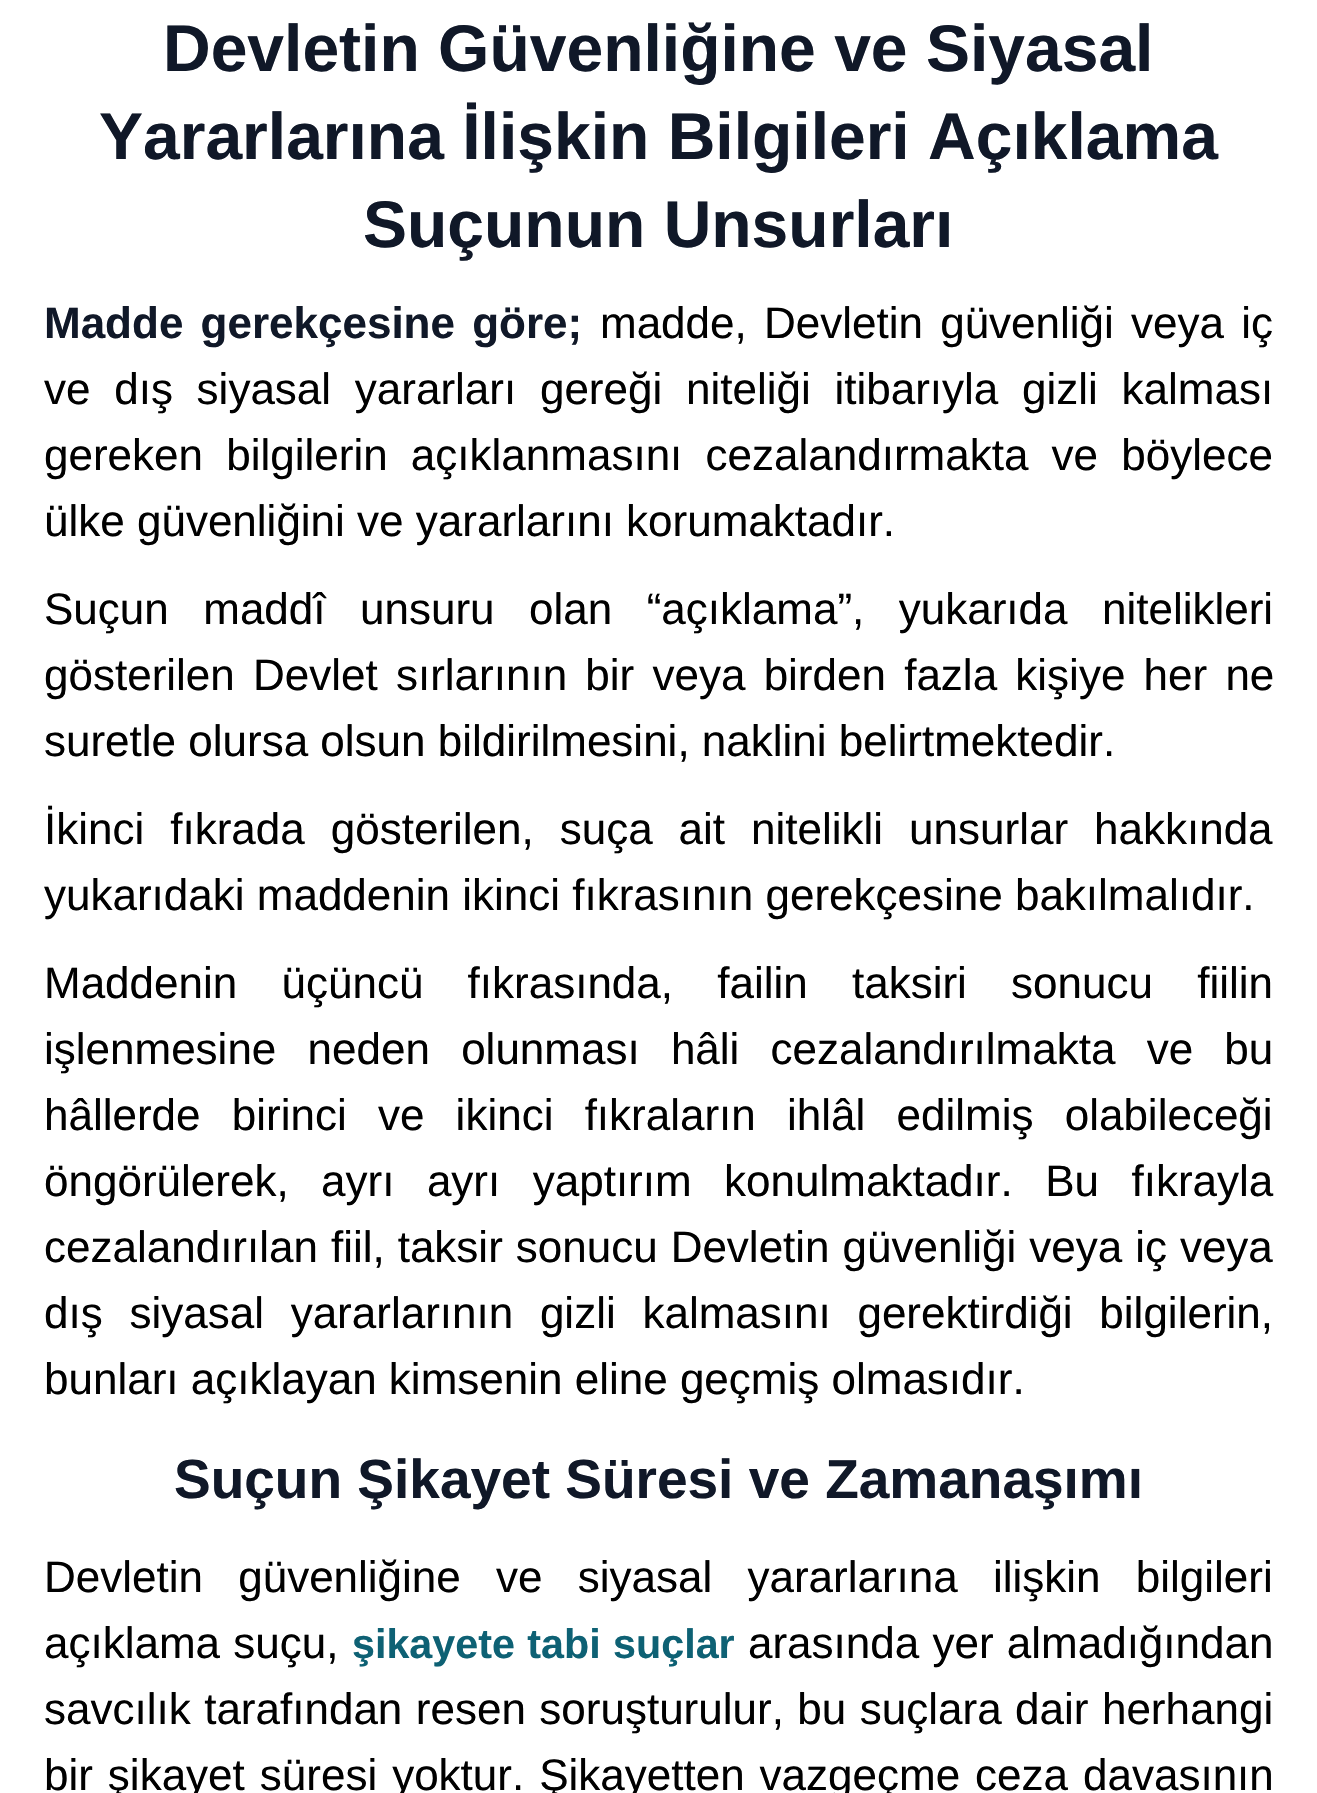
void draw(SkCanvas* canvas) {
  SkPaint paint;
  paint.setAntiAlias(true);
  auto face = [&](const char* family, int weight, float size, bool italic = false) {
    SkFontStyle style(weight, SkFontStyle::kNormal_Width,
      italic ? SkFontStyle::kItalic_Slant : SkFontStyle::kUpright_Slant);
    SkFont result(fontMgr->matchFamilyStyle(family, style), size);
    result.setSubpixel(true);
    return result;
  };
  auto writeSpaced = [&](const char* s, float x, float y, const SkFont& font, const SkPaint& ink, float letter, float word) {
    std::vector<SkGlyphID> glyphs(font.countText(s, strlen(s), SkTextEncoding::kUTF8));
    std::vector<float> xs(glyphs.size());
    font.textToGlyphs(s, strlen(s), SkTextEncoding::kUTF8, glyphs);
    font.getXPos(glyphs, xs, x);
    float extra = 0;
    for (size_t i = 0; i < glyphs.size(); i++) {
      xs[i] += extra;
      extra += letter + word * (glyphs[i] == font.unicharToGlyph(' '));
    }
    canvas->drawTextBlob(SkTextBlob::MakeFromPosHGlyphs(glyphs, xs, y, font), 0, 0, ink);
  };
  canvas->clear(0xffffffff);
  auto f0 = face("Liberation Sans", 700, 66);
  paint.setColor(0xff101828);
  {
    const struct { const char* s; float x, y; } items[] = {
      {"Devletin Güvenliğine ve Siyasal", 163, 71},
      {"Yararlarına İlişkin Bilgileri Açıklama", 99, 159},
      {"Suçunun Unsurları", 363, 247},
    };
    for (auto [s, x, y] : items) {
      canvas->drawString(s, x, y, f0, paint);
    }
  }
  auto f1 = face("Liberation Sans", 700, 44);
  writeSpaced("Madde gerekçesine göre;", 44, 338, f1, paint, 0, 5);
  auto f2 = face("Liberation Sans", 400, 44);
  paint.setColor(0xff000000);
  writeSpaced("madde, Devletin güvenliği veya iç", 600, 338, f2, paint, 0, 5);
  writeSpaced("ve dış siyasal yararları gereği niteliği itibarıyla gizli kalması", 44, 404, f2, paint, 0, 11.5f);
  writeSpaced("gereken bilgilerin açıklanmasını cezalandırmakta ve böylece", 44, 470, f2, paint, 0, 11);
  canvas->drawString("ülke güvenliğini ve yararlarını korumaktadır.", 44, 536, f2, paint);
  writeSpaced("Suçun maddî unsuru olan “açıklama”, yukarıda nitelikleri", 44, 624, f2, paint, 0, 22.25f);
  writeSpaced("gösterilen Devlet sırlarının bir veya birden fazla kişiye her ne", 44, 690, f2, paint, 0, 6);
  canvas->drawString("suretle olursa olsun bildirilmesini, naklini belirtmektedir.", 44, 756, f2, paint);
  writeSpaced("İkinci fıkrada gösterilen, suça ait nitelikli unsurlar hakkında", 44, 844, f2, paint, 0, 13.75f);
  canvas->drawString("yukarıdaki maddenin ikinci fıkrasının gerekçesine bakılmalıdır.", 44, 910, f2, paint);
  writeSpaced("Maddenin üçüncü fıkrasında, failin taksiri sonucu fiilin", 44, 998, f2, paint, 0, 32);
  writeSpaced("işlenmesine neden olunması hâli cezalandırılmakta ve bu", 44, 1064, f2, paint, 0, 19);
  writeSpaced("hâllerde birinci ve ikinci fıkraların ihlâl edilmiş olabileceği", 44, 1130, f2, paint, 0, 19);
  writeSpaced("öngörülerek, ayrı ayrı yaptırım konulmaktadır. Bu fıkrayla", 44, 1196, f2, paint, 0, 20.25f);
  writeSpaced("cezalandırılan fiil, taksir sonucu Devletin güvenliği veya iç veya", 44, 1262, f2, paint, 0, 0.75f);
  writeSpaced("dış siyasal yararlarının gizli kalmasını gerektirdiği bilgilerin,", 44, 1328, f2, paint, 0, 14.5f);
  canvas->drawString("bunları açıklayan kimsenin eline geçmiş olmasıdır.", 44, 1394, f2, paint);
  auto f3 = face("Liberation Sans", 700, 55);
  paint.setColor(0xff101828);
  canvas->drawString("Suçun Şikayet Süresi ve Zamanaşımı", 174, 1498, f3, paint);
  paint.setColor(0xff000000);
  writeSpaced("Devletin güvenliğine ve siyasal yararlarına ilişkin bilgileri", 44, 1592, f2, paint, 0, 23);
  writeSpaced("açıklama suçu,", 44, 1658, f2, paint, 0, 1);
  auto f4 = face("Liberation Sans", 700, 41.25f);
  paint.setColor(0xff0e6174);
  writeSpaced("şikayete tabi suçlar", 352, 1658, f4, paint, 0, 1);
  paint.setColor(0xff000000);
  writeSpaced("arasında yer almadığından", 748, 1658, f2, paint, 0, 1);
  writeSpaced("savcılık tarafından resen soruşturulur, bu suçlara dair herhangi", 44, 1724, f2, paint, 0, 1.25f);
  writeSpaced("bir şikayet süresi yoktur. Şikayetten vazgeçme ceza davasının", 44, 1790, f2, paint, 0, 2.75f);
}
